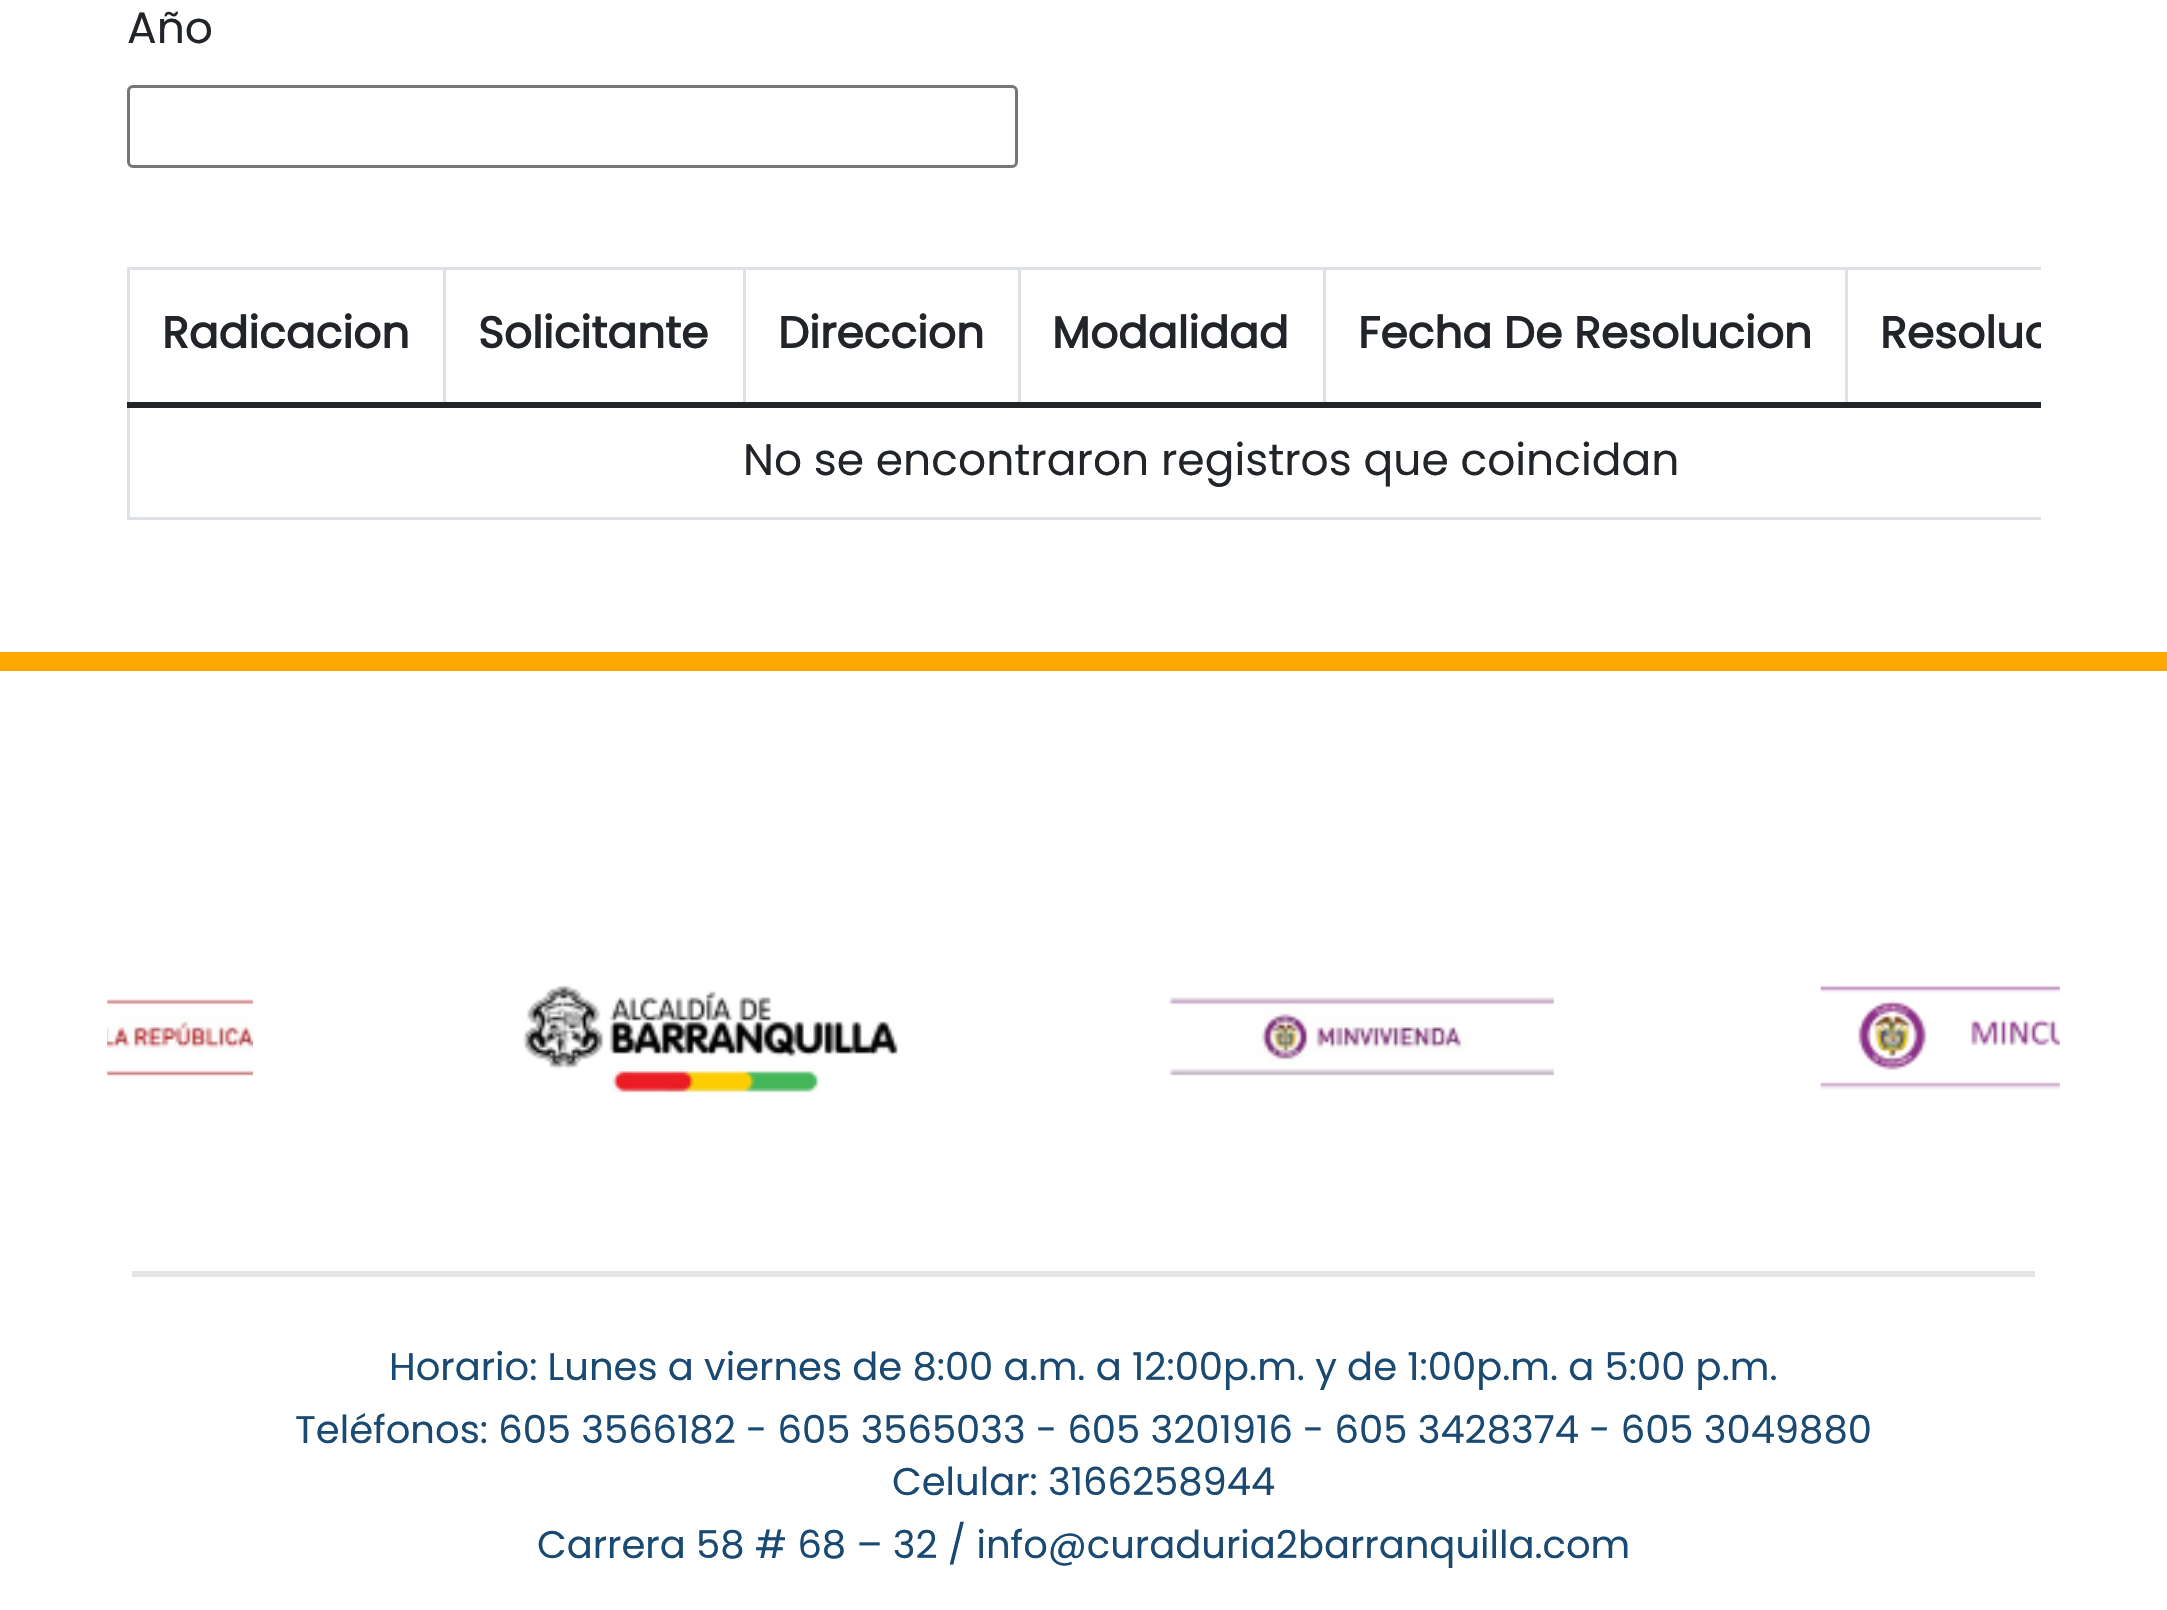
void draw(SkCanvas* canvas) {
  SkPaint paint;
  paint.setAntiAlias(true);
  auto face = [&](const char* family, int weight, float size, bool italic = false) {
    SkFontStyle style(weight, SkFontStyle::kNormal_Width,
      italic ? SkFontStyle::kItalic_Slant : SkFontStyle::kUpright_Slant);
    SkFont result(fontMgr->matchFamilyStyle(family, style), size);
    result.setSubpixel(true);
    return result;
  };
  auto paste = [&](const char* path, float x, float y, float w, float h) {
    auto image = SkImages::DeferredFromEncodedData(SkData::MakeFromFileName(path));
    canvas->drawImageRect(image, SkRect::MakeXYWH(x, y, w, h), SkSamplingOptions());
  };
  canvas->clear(0xffffffff);
  paint.setStroke(true);
  paint.setStrokeWidth(3);
  paint.setColor(0xff767676);
  canvas->drawRoundRect(SkRect::MakeXYWH(128.5f, 86.5f, 888, 80), 4.5f, 4.5f, paint);
  paint.setStroke(false);
  {
    const struct { float x, y, w, h; SkColor color; } items[] = {
      {127, 267, 1914, 3, 0xffdee2e6},
      {443, 267, 3, 137, 0xffdee2e6},
      {743, 267, 3, 137, 0xffdee2e6},
      {1018, 267, 3, 137, 0xffdee2e6},
      {1323, 267, 3, 137, 0xffdee2e6},
      {1845, 267, 3, 137, 0xffdee2e6},
      {127, 517, 1914, 3, 0xffdee2e6},
      {127, 267, 3, 253, 0xffdee2e6},
      {127, 402, 1914, 6, 0xff212529},
      {0, 652, 2167, 19, 0xffffa800},
    };
    for (auto [x, y, w, h, color] : items) {
      paint.setColor(color);
      canvas->drawRect(SkRect::MakeXYWH(x, y, w, h), paint);
    }
  }
  paste("img/1.png", 107, 998, 146, 78);
  paste("img/2.png", 522, 984, 376, 110);
  paste("img/3.png", 1169, 997, 385, 79);
  paste("img/4.png", 1820, 986, 240, 104);
  paint.setColor(0xffe5e5e5);
  canvas->drawRect(SkRect::MakeXYWH(132, 1271, 1903, 6), paint);
  auto f0 = face("Poppins", 400, 44);
  paint.setColor(0xff212529);
  canvas->drawString("Año", 127, 43, f0, paint);
  auto f1 = face("Poppins", 700, 44);
  {
    const struct { const char* s; float x, y; } items[] = {
      {"Radicacion", 162, 348},
      {"Solicitante", 478, 348},
      {"Direccion", 778, 348},
      {"Modalidad", 1052, 348},
      {"Fecha De Resolucion", 1358, 348},
    };
    for (auto [s, x, y] : items) {
      canvas->drawString(s, x, y, f1, paint);
    }
  }
  canvas->save();
  canvas->clipRect(SkRect::MakeXYWH(1848, 270, 193, 132));
  canvas->drawString("Resoluc", 1880, 348, f1, paint);
  canvas->restore();
  canvas->drawString("No se encontraron registros que coincidan", 743, 475, f0, paint);
  auto f2 = face("Poppins", 400, 38.5f);
  paint.setColor(0xff1a4972);
  {
    const struct { const char* s; float x, y; } items[] = {
      {"Horario: Lunes a viernes de 8:00 a.m. a 12:00p.m. y de 1:00p.m. a 5:00 p.m.", 389, 1380},
      {"Teléfonos: 605 3566182 - 605 3565033 - 605 3201916 - 605 3428374 - 605 3049880", 295, 1443},
      {"Celular: 3166258944", 892, 1495},
      {"Carrera 58 # 68 – 32 / info@curaduria2barranquilla.com", 537, 1558},
    };
    for (auto [s, x, y] : items) {
      canvas->drawString(s, x, y, f2, paint);
    }
  }
}
